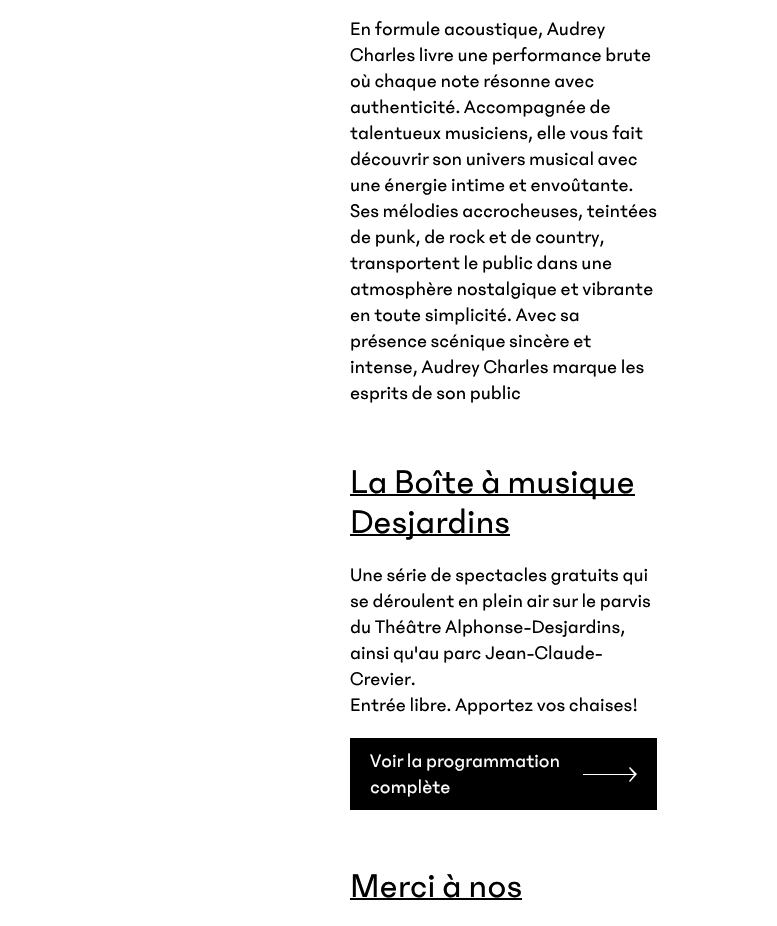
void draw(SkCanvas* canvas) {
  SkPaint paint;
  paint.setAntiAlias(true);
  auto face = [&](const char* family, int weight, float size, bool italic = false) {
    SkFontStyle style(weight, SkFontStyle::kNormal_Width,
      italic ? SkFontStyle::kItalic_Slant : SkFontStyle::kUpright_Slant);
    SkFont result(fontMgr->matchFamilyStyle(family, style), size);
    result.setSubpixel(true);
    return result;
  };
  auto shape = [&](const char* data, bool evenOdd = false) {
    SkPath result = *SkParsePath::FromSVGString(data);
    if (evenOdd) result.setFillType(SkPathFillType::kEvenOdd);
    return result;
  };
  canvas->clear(0xffffffff);
  {
    const struct { float x, y, w, h; SkColor color; } items[] = {
      {350, 494, 285, 2, 0xff000000},
      {350, 534, 160, 2, 0xff000000},
      {350, 738, 307, 72, 0xff000000},
    };
    for (auto [x, y, w, h, color] : items) {
      paint.setColor(color);
      canvas->drawRect(SkRect::MakeXYWH(x, y, w, h), paint);
    }
  }
  paint.setColor(0xffffffff);
  canvas->drawPath(shape("M630 767L629 768L634 774H583V775H634L629 781L630 782L637 774Z"), paint);
  paint.setColor(0xff000000);
  canvas->drawRect(SkRect::MakeXYWH(350, 898, 172, 2), paint);
  auto f0 = face("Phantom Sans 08", 400, 20);
  {
    const struct { const char* s; float x, y; } items[] = {
      {"En formule acoustique, Audrey", 350, 35},
      {"Charles livre une performance brute", 350, 61},
      {"où chaque note résonne avec", 350, 87},
      {"authenticité. Accompagnée de", 350, 113},
      {"talentueux musiciens, elle vous fait", 350, 139},
      {"découvrir son univers musical avec", 350, 165},
      {"une énergie intime et envoûtante.", 350, 191},
      {"Ses mélodies accrocheuses, teintées", 350, 217},
      {"de punk, de rock et de country,", 350, 243},
      {"transportent le public dans une", 350, 269},
      {"atmosphère nostalgique et vibrante", 350, 295},
      {"en toute simplicité. Avec sa", 350, 321},
      {"présence scénique sincère et", 350, 347},
      {"intense, Audrey Charles marque les", 350, 373},
      {"esprits de son public", 350, 399},
    };
    for (auto [s, x, y] : items) {
      canvas->drawString(s, x, y, f0, paint);
    }
  }
  auto f1 = face("Phantom Sans 08", 400, 36);
  canvas->drawString("La Boîte à musique", 350, 493, f1, paint);
  canvas->drawString("Desjardins", 350, 533, f1, paint);
  {
    const struct { const char* s; float x, y; } items[] = {
      {"Une série de spectacles gratuits qui", 350, 581},
      {"se déroulent en plein air sur le parvis", 350, 607},
      {"du Théâtre Alphonse-Desjardins,", 350, 633},
      {"ainsi qu'au parc Jean-Claude-", 350, 659},
      {"Crevier.", 350, 685},
      {"Entrée libre. Apportez vos chaises!", 350, 711},
    };
    for (auto [s, x, y] : items) {
      canvas->drawString(s, x, y, f0, paint);
    }
  }
  paint.setColor(0xffffffff);
  canvas->drawString("Voir la programmation", 370, 767, f0, paint);
  canvas->drawString("complète", 370, 793, f0, paint);
  paint.setColor(0xff000000);
  canvas->drawString("Merci à nos", 350, 897, f1, paint);
}
